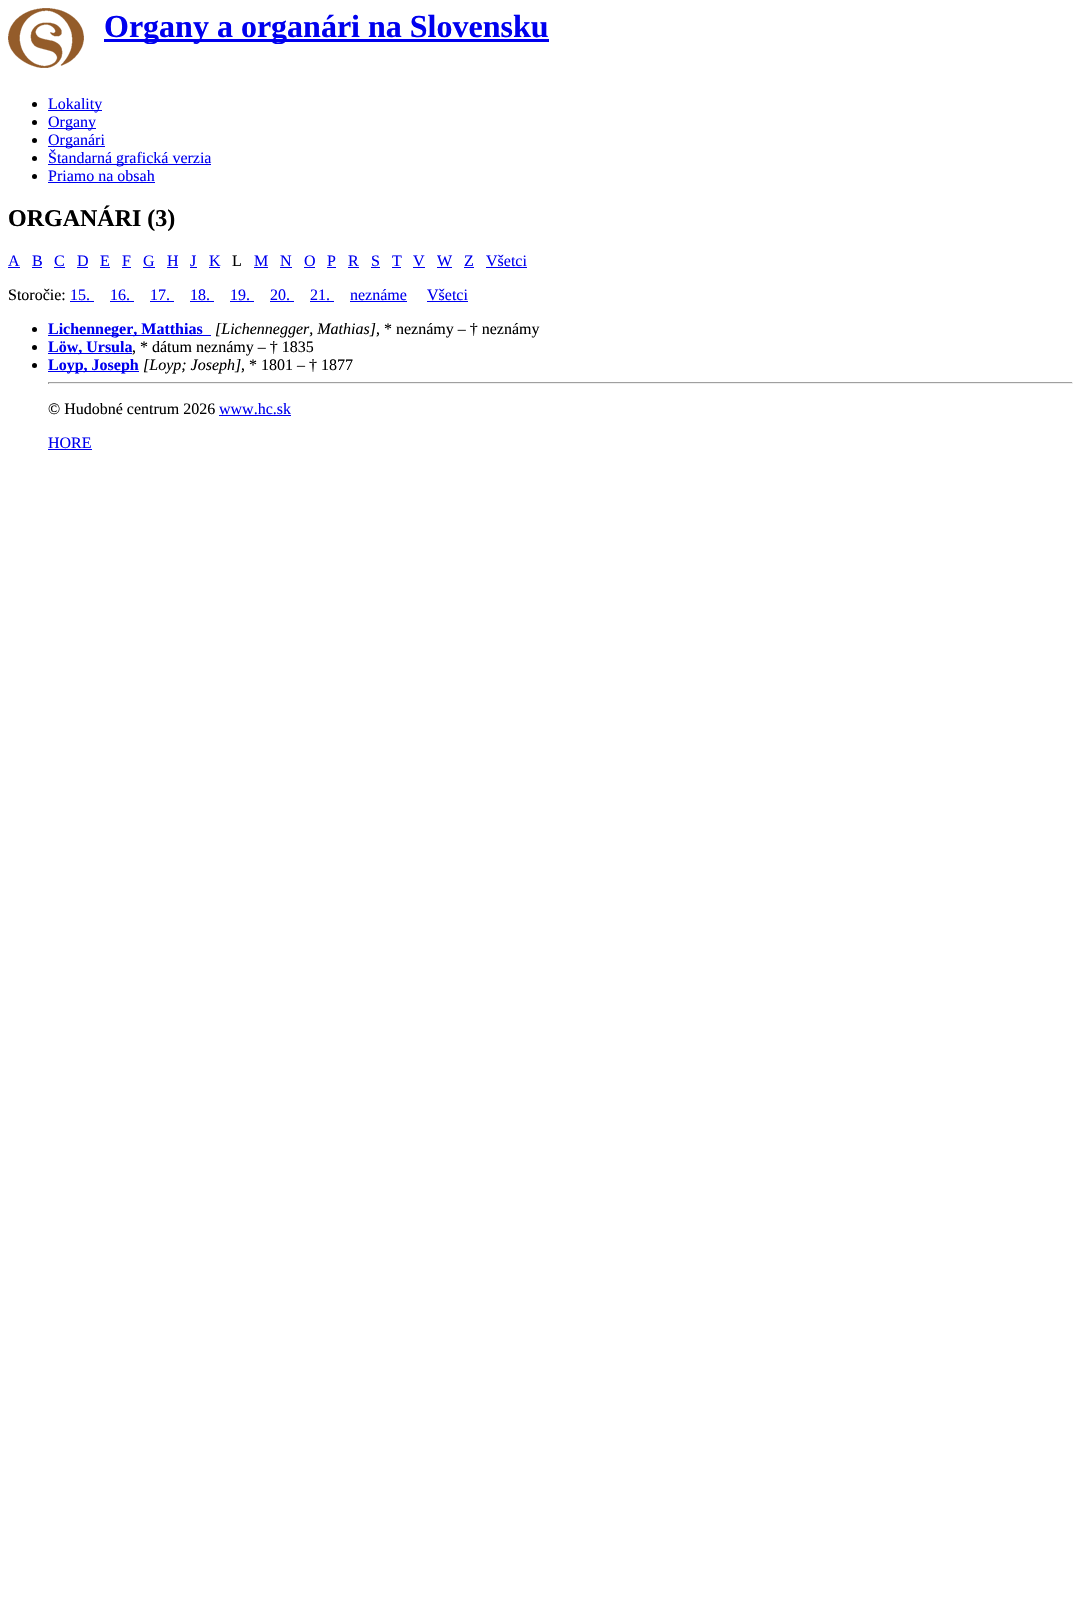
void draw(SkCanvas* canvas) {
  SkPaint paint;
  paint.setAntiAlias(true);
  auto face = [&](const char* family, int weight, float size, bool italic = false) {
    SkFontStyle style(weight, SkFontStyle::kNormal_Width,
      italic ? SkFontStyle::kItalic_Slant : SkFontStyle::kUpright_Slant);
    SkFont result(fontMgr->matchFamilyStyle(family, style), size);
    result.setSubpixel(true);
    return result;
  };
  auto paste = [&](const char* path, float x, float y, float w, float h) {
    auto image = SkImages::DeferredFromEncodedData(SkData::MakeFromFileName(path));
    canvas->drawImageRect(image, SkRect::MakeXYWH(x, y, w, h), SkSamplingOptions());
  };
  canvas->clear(0xffffffff);
  paste("img/1.png", 8, 8, 76, 60);
  paint.setColor(0xff0000ee);
  canvas->drawRect(SkRect::MakeXYWH(104, 39, 445, 3), paint);
  paint.setColor(0xff000000);
  canvas->drawCircle(34.5f, 104.5f, 2.5f, paint);
  paint.setColor(0xff0000ee);
  canvas->drawRect(SkRect::MakeXYWH(48, 110, 54, 1), paint);
  paint.setColor(0xff000000);
  canvas->drawCircle(34.5f, 122.5f, 2.5f, paint);
  paint.setColor(0xff0000ee);
  canvas->drawRect(SkRect::MakeXYWH(48, 128, 48, 1), paint);
  paint.setColor(0xff000000);
  canvas->drawCircle(34.5f, 140.5f, 2.5f, paint);
  paint.setColor(0xff0000ee);
  canvas->drawRect(SkRect::MakeXYWH(48, 146, 57, 1), paint);
  paint.setColor(0xff000000);
  canvas->drawCircle(34.5f, 158.5f, 2.5f, paint);
  paint.setColor(0xff0000ee);
  canvas->drawRect(SkRect::MakeXYWH(48, 164, 163, 1), paint);
  paint.setColor(0xff000000);
  canvas->drawCircle(34.5f, 176.5f, 2.5f, paint);
  {
    const struct { float x, y, w, h; SkColor color; } items[] = {
      {48, 182, 107, 1, 0xff0000ee},
      {8, 267, 12, 1, 0xff0000ee},
      {32, 267, 10, 1, 0xff0000ee},
      {54, 267, 11, 1, 0xff0000ee},
      {77, 267, 11, 1, 0xff0000ee},
      {100, 267, 10, 1, 0xff0000ee},
      {122, 267, 9, 1, 0xff0000ee},
      {143, 267, 12, 1, 0xff0000ee},
      {167, 267, 11, 1, 0xff0000ee},
      {190, 267, 7, 1, 0xff0000ee},
      {209, 267, 11, 1, 0xff0000ee},
      {254, 267, 14, 1, 0xff0000ee},
      {280, 267, 12, 1, 0xff0000ee},
      {304, 267, 11, 1, 0xff0000ee},
      {327, 267, 9, 1, 0xff0000ee},
      {348, 267, 11, 1, 0xff0000ee},
      {371, 267, 9, 1, 0xff0000ee},
      {392, 267, 9, 1, 0xff0000ee},
      {413, 267, 12, 1, 0xff0000ee},
      {437, 267, 15, 1, 0xff0000ee},
      {464, 267, 10, 1, 0xff0000ee},
      {486, 267, 41, 1, 0xff0000ee},
      {70, 301, 24, 1, 0xff0000ee},
      {110, 301, 24, 1, 0xff0000ee},
      {150, 301, 24, 1, 0xff0000ee},
      {190, 301, 24, 1, 0xff0000ee},
      {230, 301, 24, 1, 0xff0000ee},
      {270, 301, 24, 1, 0xff0000ee},
      {310, 301, 24, 1, 0xff0000ee},
      {350, 301, 57, 1, 0xff0000ee},
      {427, 301, 41, 1, 0xff0000ee},
    };
    for (auto [x, y, w, h, color] : items) {
      paint.setColor(color);
      canvas->drawRect(SkRect::MakeXYWH(x, y, w, h), paint);
    }
  }
  paint.setColor(0xff000000);
  canvas->drawCircle(34.5f, 329.5f, 2.5f, paint);
  paint.setColor(0xff0000ee);
  canvas->drawRect(SkRect::MakeXYWH(48, 335, 163, 1), paint);
  paint.setColor(0xff000000);
  canvas->drawCircle(34.5f, 347.5f, 2.5f, paint);
  paint.setColor(0xff0000ee);
  canvas->drawRect(SkRect::MakeXYWH(48, 353, 84, 1), paint);
  paint.setColor(0xff000000);
  canvas->drawCircle(34.5f, 365.5f, 2.5f, paint);
  {
    const struct { float x, y, w, h; SkColor color; } items[] = {
      {48, 371, 91, 1, 0xff0000ee},
      {48, 382, 1025, 1, 0xff9f9f9f},
      {1072, 382, 1, 2, 0xffeeeeee},
      {48, 383, 1025, 1, 0xffeeeeee},
      {48, 382, 1, 2, 0xff9f9f9f},
      {219, 415, 72, 1, 0xff0000ee},
      {48, 449, 44, 1, 0xff0000ee},
    };
    for (auto [x, y, w, h, color] : items) {
      paint.setColor(color);
      canvas->drawRect(SkRect::MakeXYWH(x, y, w, h), paint);
    }
  }
  auto f0 = face("Liberation Serif", 700, 32);
  canvas->drawString("Organy a organári na Slovensku", 104, 37, f0, paint);
  auto f1 = face("Liberation Serif", 400, 16);
  {
    const struct { const char* s; float x, y; } items[] = {
      {"Lokality", 48, 109},
      {"Organy", 48, 127},
      {"Organári", 48, 145},
      {"Štandarná grafická verzia", 48, 163},
      {"Priamo na obsah", 48, 181},
    };
    for (auto [s, x, y] : items) {
      canvas->drawString(s, x, y, f1, paint);
    }
  }
  auto f2 = face("Liberation Serif", 700, 24);
  paint.setColor(0xff000000);
  canvas->drawString("ORGANÁRI (3)", 8, 226, f2, paint);
  paint.setColor(0xff0000ee);
  {
    const struct { const char* s; float x, y; } items[] = {
      {"A", 8, 266},
      {"B", 32, 266},
      {"C", 54, 266},
      {"D", 77, 266},
      {"E", 100, 266},
      {"F", 122, 266},
      {"G", 143, 266},
      {"H", 167, 266},
      {"J", 190, 266},
      {"K", 209, 266},
    };
    for (auto [s, x, y] : items) {
      canvas->drawString(s, x, y, f1, paint);
    }
  }
  paint.setColor(0xff000000);
  canvas->drawString("L", 232, 266, f1, paint);
  paint.setColor(0xff0000ee);
  {
    const struct { const char* s; float x, y; } items[] = {
      {"M", 254, 266},
      {"N", 280, 266},
      {"O", 304, 266},
      {"P", 327, 266},
      {"R", 348, 266},
      {"S", 371, 266},
      {"T", 392, 266},
      {"V", 413, 266},
      {"W", 437, 266},
      {"Z", 464, 266},
      {"Všetci", 486, 266},
    };
    for (auto [s, x, y] : items) {
      canvas->drawString(s, x, y, f1, paint);
    }
  }
  paint.setColor(0xff000000);
  canvas->drawString("Storočie:", 8, 300, f1, paint);
  paint.setColor(0xff0000ee);
  {
    const struct { const char* s; float x, y; } items[] = {
      {"15.", 70, 300},
      {"16.", 110, 300},
      {"17.", 150, 300},
      {"18.", 190, 300},
      {"19.", 230, 300},
      {"20.", 270, 300},
      {"21.", 310, 300},
      {"neznáme", 350, 300},
      {"Všetci", 427, 300},
    };
    for (auto [s, x, y] : items) {
      canvas->drawString(s, x, y, f1, paint);
    }
  }
  auto f3 = face("Liberation Serif", 700, 16);
  canvas->drawString("Lichenneger, Matthias", 48, 334, f3, paint);
  auto f4 = face("Liberation Serif", 400, 16, true);
  paint.setColor(0xff000000);
  canvas->drawString("[Lichennegger, Mathias]", 215, 334, f4, paint);
  canvas->drawString(", * neznámy – † neznámy", 376, 334, f1, paint);
  paint.setColor(0xff0000ee);
  canvas->drawString("Löw, Ursula", 48, 352, f3, paint);
  paint.setColor(0xff000000);
  canvas->drawString(", * dátum neznámy – † 1835", 132, 352, f1, paint);
  paint.setColor(0xff0000ee);
  canvas->drawString("Loyp, Joseph", 48, 370, f3, paint);
  paint.setColor(0xff000000);
  canvas->drawString("[Loyp; Joseph]", 143, 370, f4, paint);
  canvas->drawString(", * 1801 – † 1877", 241, 370, f1, paint);
  canvas->drawString("© Hudobné centrum 2026", 48, 414, f1, paint);
  paint.setColor(0xff0000ee);
  canvas->drawString("www.hc.sk", 219, 414, f1, paint);
  canvas->drawString("HORE", 48, 448, f1, paint);
}
